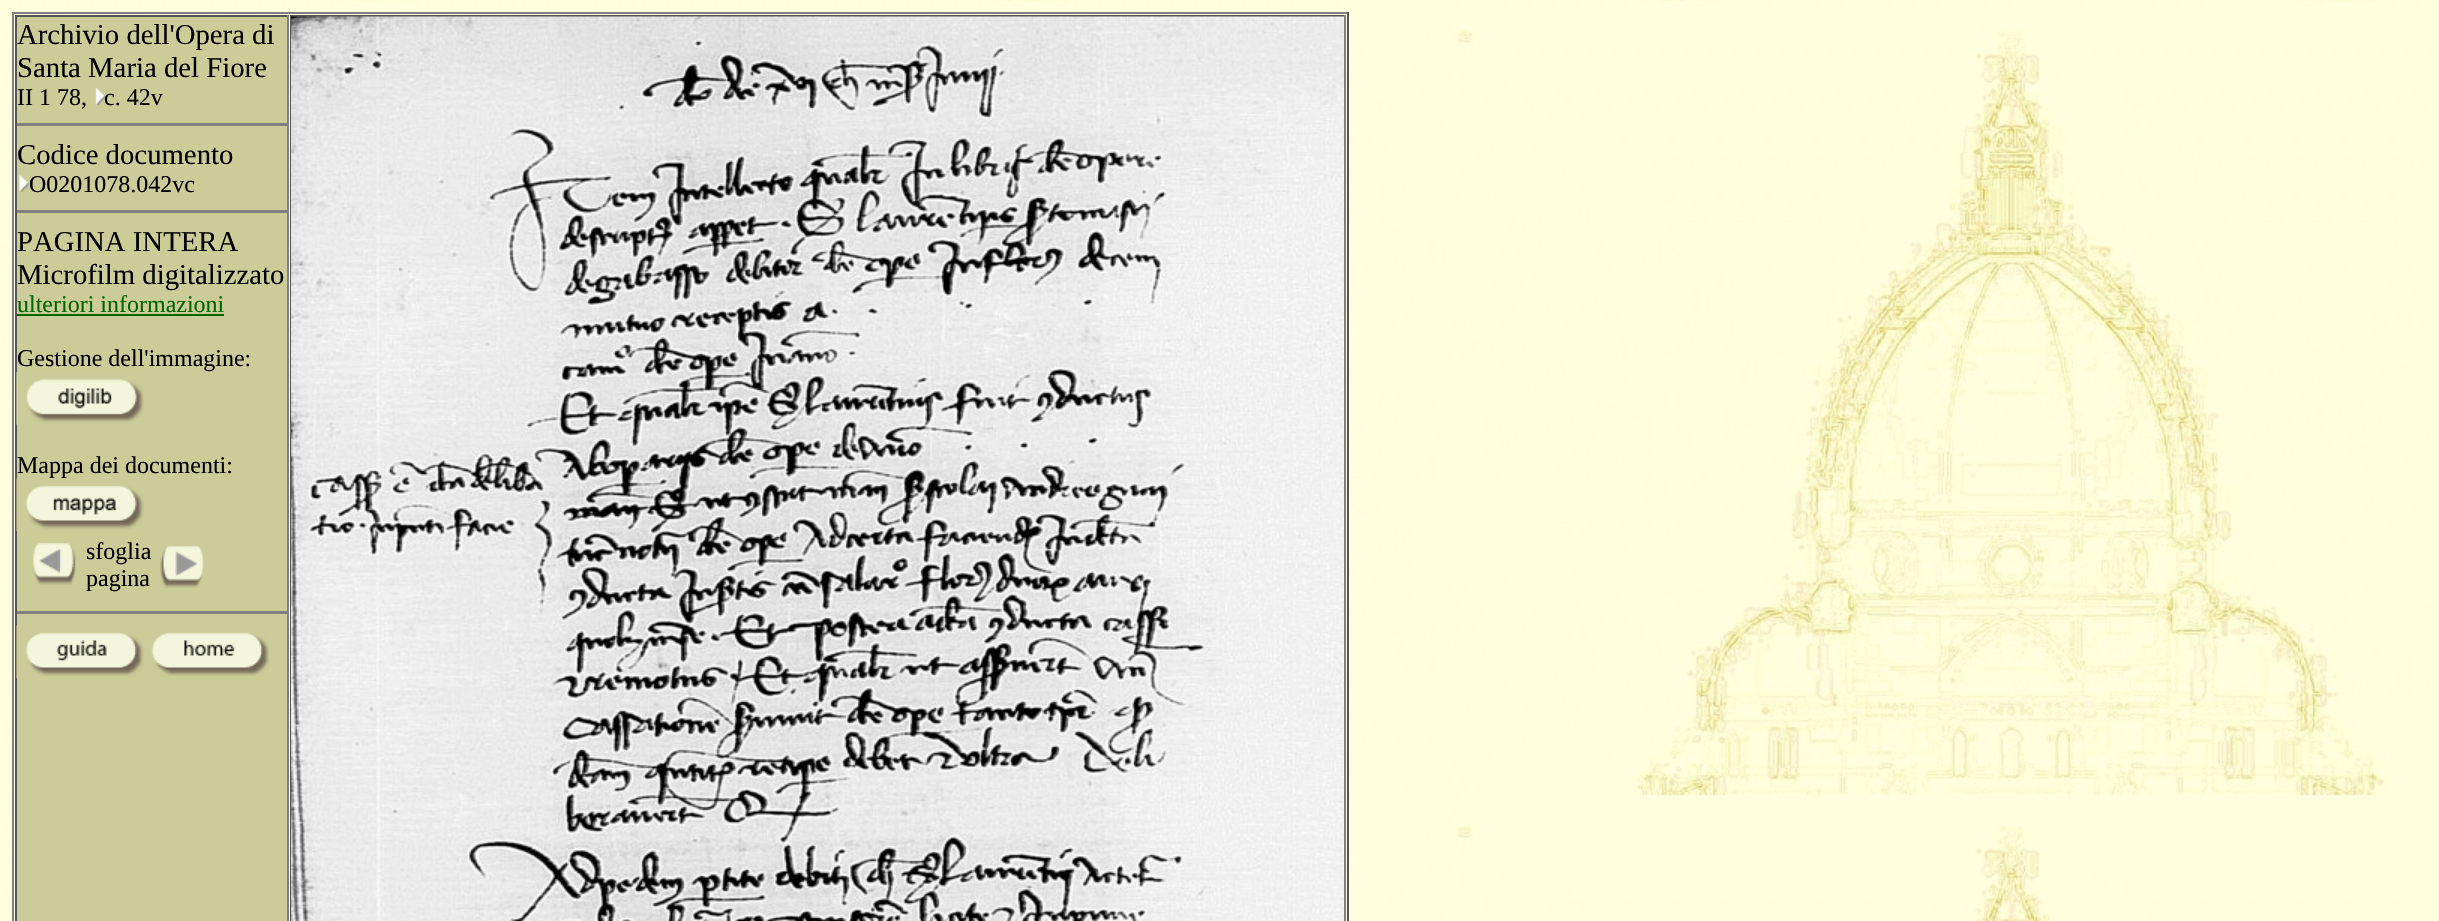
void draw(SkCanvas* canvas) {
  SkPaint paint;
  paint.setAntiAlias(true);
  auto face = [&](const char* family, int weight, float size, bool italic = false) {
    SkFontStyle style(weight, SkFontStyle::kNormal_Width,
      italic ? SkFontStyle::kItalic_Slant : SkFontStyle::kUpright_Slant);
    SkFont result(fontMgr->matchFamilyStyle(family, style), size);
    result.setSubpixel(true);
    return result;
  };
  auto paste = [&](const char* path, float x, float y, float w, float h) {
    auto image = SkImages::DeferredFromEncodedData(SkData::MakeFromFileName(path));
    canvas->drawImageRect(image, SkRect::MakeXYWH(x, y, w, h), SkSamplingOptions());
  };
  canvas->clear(0xffffffff);
  paste("img/1.png", 0, 0, 2439, 921);
  {
    const struct { float x, y, w, h; SkColor color; } items[] = {
      {12, 12, 1337, 2, 0xff808080},
      {1347, 12, 2, 909, 0xff555555},
      {12, 12, 2, 909, 0xff808080},
      {17, 17, 270, 904, 0xffcccc99},
      {15, 15, 273, 2, 0xff555555},
      {287, 15, 2, 906, 0xff808080},
      {15, 15, 2, 906, 0xff555555},
    };
    for (auto [x, y, w, h, color] : items) {
      paint.setColor(color);
      canvas->drawRect(SkRect::MakeXYWH(x, y, w, h), paint);
    }
  }
  paste("img/2.png", 95, 88, 10, 17);
  paint.setColor(0xff808080);
  canvas->drawRect(SkRect::MakeXYWH(17, 123, 270, 3), paint);
  paste("img/3.png", 19, 175, 10, 17);
  canvas->drawRect(SkRect::MakeXYWH(17, 210, 270, 3), paint);
  paint.setColor(0xff006600);
  canvas->drawRect(SkRect::MakeXYWH(17, 314, 207, 2), paint);
  paste("img/4.png", 16, 372, 128, 53);
  paste("img/6.png", 32, 542, 44, 43);
  paste("img/7.png", 160, 545, 44, 43);
  paint.setColor(0xff808080);
  canvas->drawRect(SkRect::MakeXYWH(17, 611, 270, 3), paint);
  paste("img/8.png", 16, 625, 128, 53);
  paste("img/9.png", 151, 632, 118, 44);
  {
    const struct { float x, y, w, h; SkColor color; } items[] = {
      {290, 15, 1056, 2, 0xff555555},
      {1344, 15, 2, 906, 0xff808080},
      {290, 15, 2, 906, 0xff555555},
    };
    for (auto [x, y, w, h, color] : items) {
      paint.setColor(color);
      canvas->drawRect(SkRect::MakeXYWH(x, y, w, h), paint);
    }
  }
  paste("img/10.png", 291, 16, 1053, 905);
  auto f0 = face("Liberation Serif", 400, 28.75f);
  paint.setColor(0xff000000);
  canvas->drawString("Archivio dell'Opera di", 17, 44, f0, paint);
  canvas->drawString("Santa Maria del Fiore", 17, 77, f0, paint);
  auto f1 = face("Liberation Serif", 400, 24);
  canvas->drawString("II 1 78,", 17, 105, f1, paint);
  canvas->drawString("c. 42v", 104, 105, f1, paint);
  canvas->drawString("Codice documento", 17, 164, f0, paint);
  canvas->drawString("O0201078.042vc", 29, 192, f1, paint);
  canvas->drawString("PAGINA INTERA", 17, 251, f0, paint);
  canvas->drawString("Microfilm digitalizzato", 17, 284, f0, paint);
  paint.setColor(0xff006600);
  canvas->drawString("ulteriori informazioni", 17, 312, f1, paint);
  paint.setColor(0xff000000);
  canvas->drawString("Gestione dell'immagine:", 17, 366, f1, paint);
  canvas->drawString("Mappa dei documenti:", 17, 473, f1, paint);
  paste("img/5.png", 16, 478, 128, 53);
  canvas->drawString("sfoglia", 86, 559, f1, paint);
  canvas->drawString("pagina", 86, 586, f1, paint);
}
